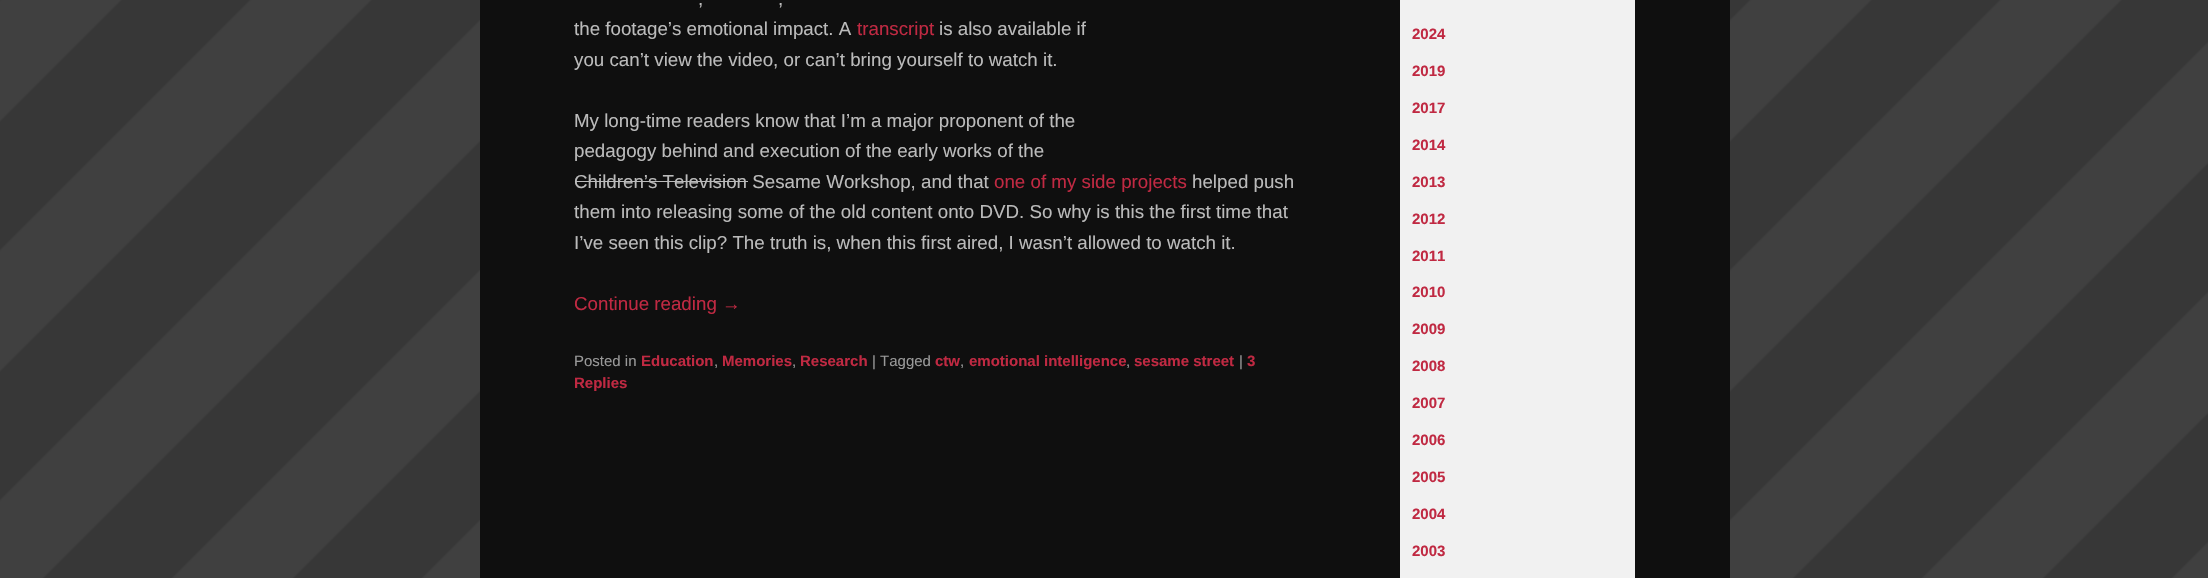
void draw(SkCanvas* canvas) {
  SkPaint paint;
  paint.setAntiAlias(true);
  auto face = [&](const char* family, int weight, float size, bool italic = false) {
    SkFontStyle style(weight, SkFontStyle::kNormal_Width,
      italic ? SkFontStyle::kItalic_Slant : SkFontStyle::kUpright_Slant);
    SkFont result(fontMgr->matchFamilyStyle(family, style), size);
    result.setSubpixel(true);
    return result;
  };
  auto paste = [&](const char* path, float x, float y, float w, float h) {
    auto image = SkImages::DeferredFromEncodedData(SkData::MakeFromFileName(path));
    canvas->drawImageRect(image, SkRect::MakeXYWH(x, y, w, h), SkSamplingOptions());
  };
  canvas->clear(0xffffffff);
  paste("img/1.png", 0, 0, 2208, 578);
  {
    const struct { float x, y, w, h; SkColor color; } items[] = {
      {480, 0, 1250, 578, 0xff0f0f0f},
      {575, 181, 173, 1, 0xffbbbbbb},
      {1400, 0, 235, 578, 0xfff1f1f1},
    };
    for (auto [x, y, w, h, color] : items) {
      paint.setColor(color);
      canvas->drawRect(SkRect::MakeXYWH(x, y, w, h), paint);
    }
  }
  auto f0 = face("Liberation Sans", 400, 18.75f);
  paint.setColor(0xffbbbbbb);
  {
    const struct { const char* s; float x, y; } items[] = {
      {",", 698, 5},
      {",", 778, 5},
      {"the footage’s emotional impact. A", 574, 35},
    };
    for (auto [s, x, y] : items) {
      canvas->drawString(s, x, y, f0, paint);
    }
  }
  paint.setColor(0xffc02942);
  canvas->drawString("transcript", 857, 35, f0, paint);
  paint.setColor(0xffbbbbbb);
  {
    const struct { const char* s; float x, y; } items[] = {
      {"is also available if", 939, 35},
      {"you can’t view the video, or can’t bring yourself to watch it.", 574, 66},
      {"My long-time readers know that I’m a major proponent of the", 574, 127},
      {"pedagogy behind and execution of the early works of the", 574, 157},
      {"Children’s Television Sesame Workshop, and that", 574, 188},
    };
    for (auto [s, x, y] : items) {
      canvas->drawString(s, x, y, f0, paint);
    }
  }
  paint.setColor(0xffc02942);
  canvas->drawString("one of my side projects", 994, 188, f0, paint);
  paint.setColor(0xffbbbbbb);
  {
    const struct { const char* s; float x, y; } items[] = {
      {"helped push", 1192, 188},
      {"them into releasing some of the old content onto DVD. So why is this the first time that", 574, 218},
      {"I’ve seen this clip? The truth is, when this first aired, I wasn’t allowed to watch it.", 574, 249},
    };
    for (auto [s, x, y] : items) {
      canvas->drawString(s, x, y, f0, paint);
    }
  }
  paint.setColor(0xffc02942);
  canvas->drawString("Continue reading →", 574, 310, f0, paint);
  auto f1 = face("Liberation Sans", 400, 15);
  paint.setColor(0xff999999);
  canvas->drawString("Posted in", 574, 366, f1, paint);
  auto f2 = face("Liberation Sans", 700, 15);
  paint.setColor(0xffc02942);
  canvas->drawString("Education", 641, 366, f2, paint);
  paint.setColor(0xff999999);
  canvas->drawString(",", 714, 366, f1, paint);
  paint.setColor(0xffc02942);
  canvas->drawString("Memories", 722, 366, f2, paint);
  paint.setColor(0xff999999);
  canvas->drawString(",", 792, 366, f1, paint);
  paint.setColor(0xffc02942);
  canvas->drawString("Research", 800, 366, f2, paint);
  paint.setColor(0xff999999);
  canvas->drawString("| Tagged", 872, 366, f1, paint);
  paint.setColor(0xffc02942);
  canvas->drawString("ctw", 935, 366, f2, paint);
  paint.setColor(0xff999999);
  canvas->drawString(",", 960, 366, f1, paint);
  paint.setColor(0xffc02942);
  canvas->drawString("emotional intelligence", 969, 366, f2, paint);
  paint.setColor(0xff999999);
  canvas->drawString(",", 1126, 366, f1, paint);
  paint.setColor(0xffc02942);
  canvas->drawString("sesame street", 1134, 366, f2, paint);
  paint.setColor(0xff999999);
  canvas->drawString("|", 1239, 366, f1, paint);
  paint.setColor(0xffc02942);
  {
    const struct { const char* s; float x, y; } items[] = {
      {"3", 1247, 366},
      {"Replies", 574, 388},
      {"2024", 1412, 39},
      {"2019", 1412, 76},
      {"2017", 1412, 113},
      {"2014", 1412, 150},
      {"2013", 1412, 187},
      {"2012", 1412, 224},
      {"2011", 1412, 261},
      {"2010", 1412, 297},
      {"2009", 1412, 334},
      {"2008", 1412, 371},
      {"2007", 1412, 408},
      {"2006", 1412, 445},
      {"2005", 1412, 482},
      {"2004", 1412, 519},
      {"2003", 1412, 556},
    };
    for (auto [s, x, y] : items) {
      canvas->drawString(s, x, y, f2, paint);
    }
  }
}
